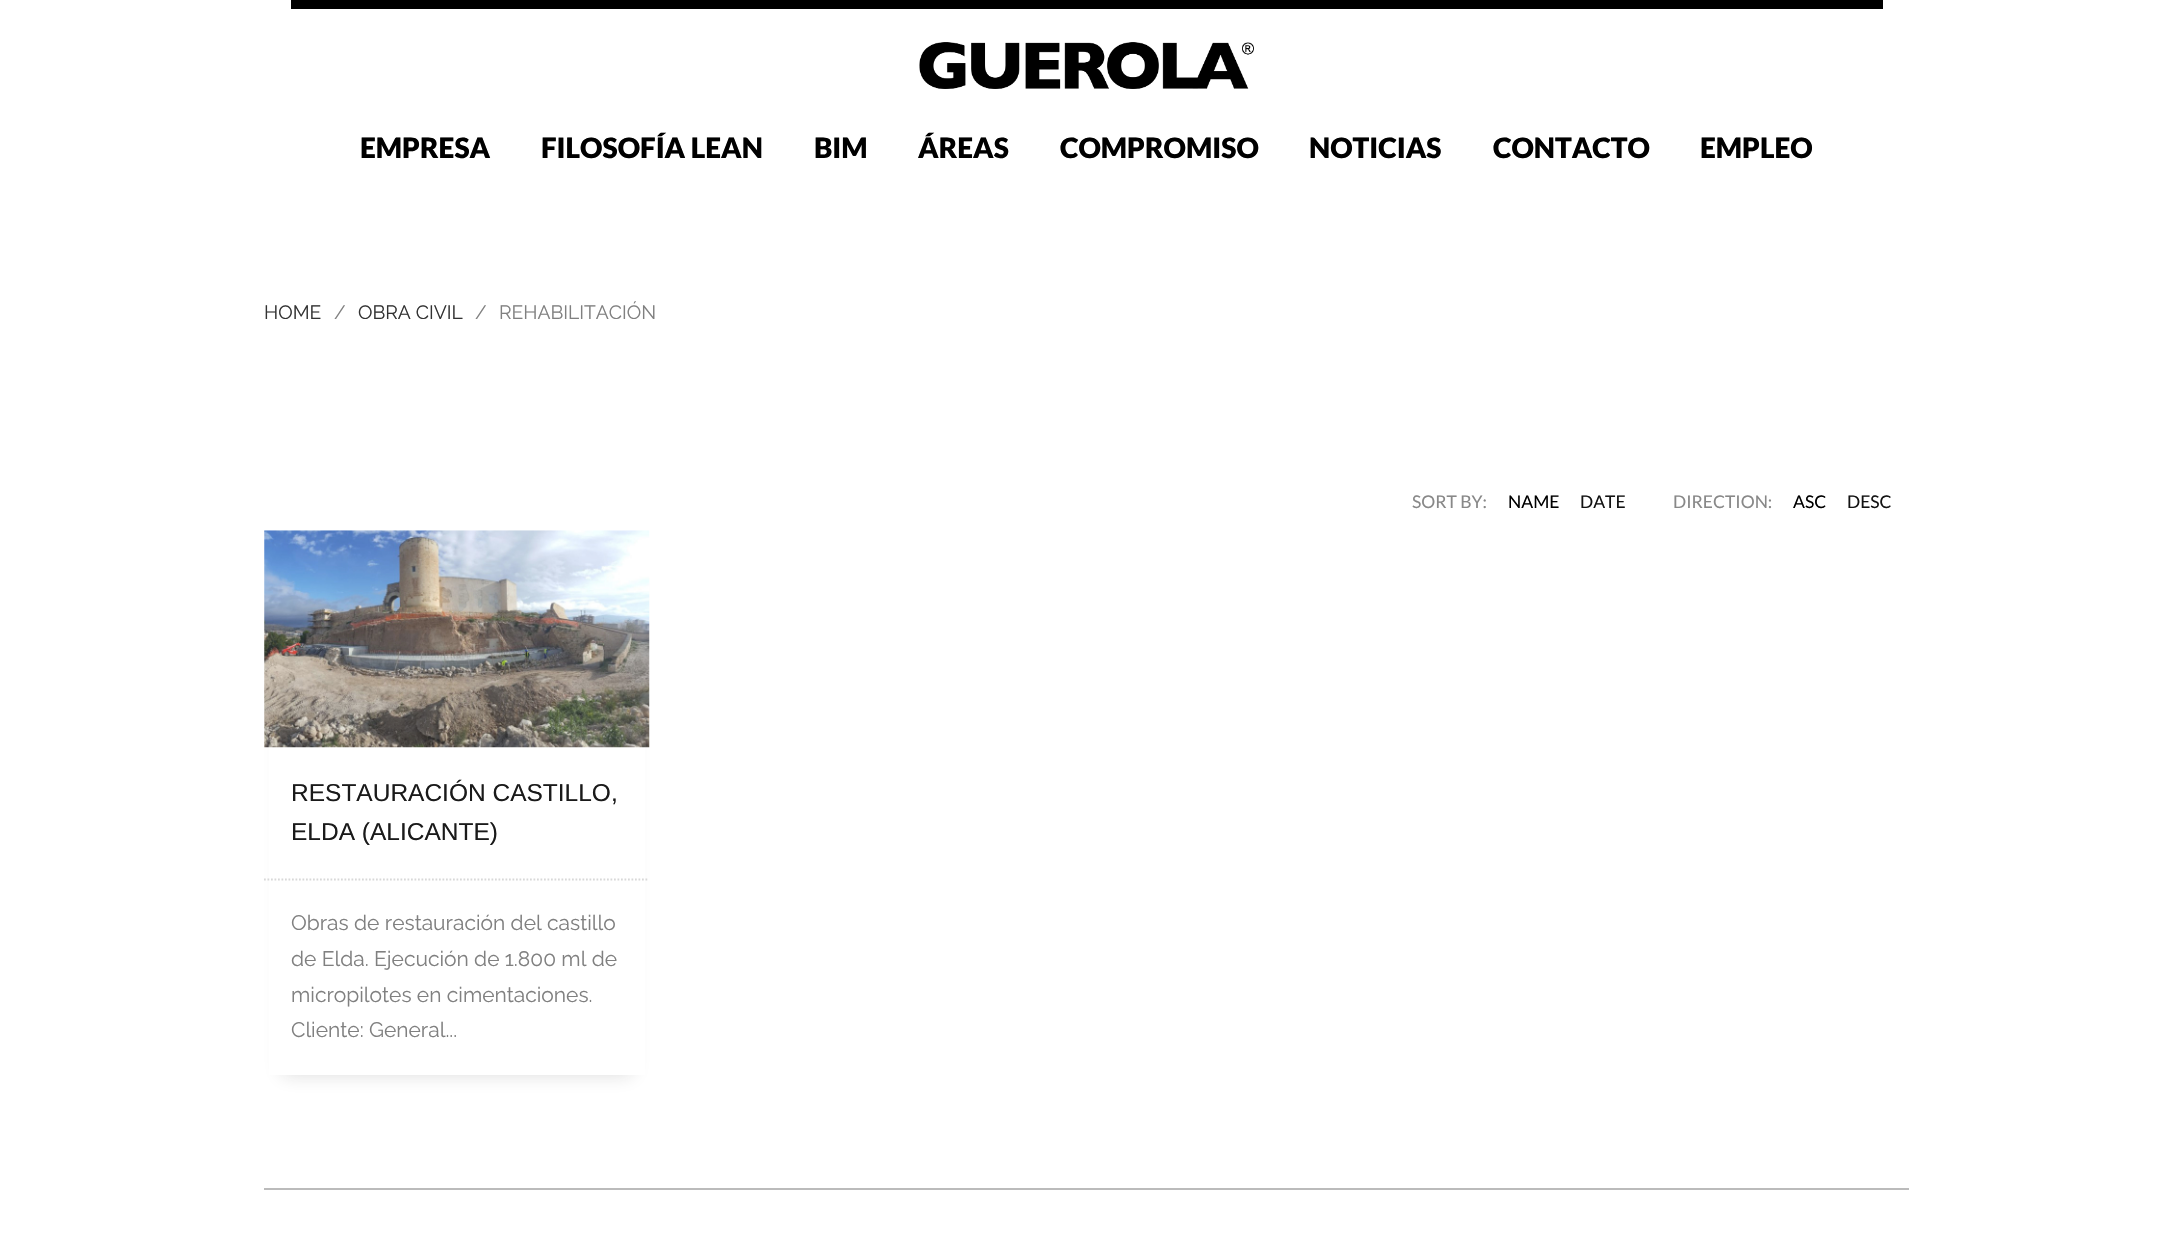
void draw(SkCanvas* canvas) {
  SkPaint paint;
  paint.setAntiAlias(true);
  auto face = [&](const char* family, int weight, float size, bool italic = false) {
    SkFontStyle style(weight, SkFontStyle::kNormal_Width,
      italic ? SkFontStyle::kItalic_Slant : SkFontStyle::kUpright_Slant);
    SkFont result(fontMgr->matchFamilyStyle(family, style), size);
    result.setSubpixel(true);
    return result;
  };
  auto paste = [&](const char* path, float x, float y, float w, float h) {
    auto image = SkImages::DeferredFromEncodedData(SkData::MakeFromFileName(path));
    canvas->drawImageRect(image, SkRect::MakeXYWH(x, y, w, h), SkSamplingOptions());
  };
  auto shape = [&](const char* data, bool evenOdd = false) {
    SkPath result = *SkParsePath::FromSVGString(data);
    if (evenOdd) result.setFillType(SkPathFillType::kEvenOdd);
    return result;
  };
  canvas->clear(0xffffffff);
  paint.setColor(0xff000000);
  canvas->drawRect(SkRect::MakeXYWH(291, 0, 1592, 9), paint);
  paste("img/1.png", 919, 42, 335, 47);
  paint.setColor(0x261a1a1a);
  paint.setMaskFilter(SkMaskFilter::MakeBlur(kNormal_SkBlurStyle, 9));
  canvas->drawRect(SkRect::MakeXYWH(282, 565, 350, 510), paint);
  paint.setMaskFilter(nullptr);
  paint.setColor(0xffffffff);
  canvas->drawRect(SkRect::MakeXYWH(269, 552, 376, 523), paint);
  paste("img/2.png", 264, 530, 386, 218);
  paint.setStroke(true);
  paint.setStrokeWidth(1.8f);
  paint.setColor(0xffd8d8d8);
  paint.setPathEffect(SkDashPathEffect::Make({{1.75f, 1.75f}}, 0));
  canvas->drawPath(shape("M264 879.5H649"), paint);
  paint.setPathEffect(nullptr);
  paint.setStroke(false);
  paint.setColor(0xffbbbbbb);
  canvas->drawRect(SkRect::MakeXYWH(264, 1188, 1645, 2), paint);
  auto f0 = face("Lato", 900, 28);
  paint.setColor(0xff000000);
  {
    const struct { const char* s; float x, y; } items[] = {
      {"EMPRESA", 360, 158},
      {"FILOSOFÍA LEAN", 541, 158},
      {"BIM", 814, 158},
      {"ÁREAS", 918, 158},
      {"COMPROMISO", 1060, 158},
      {"NOTICIAS", 1309, 158},
      {"CONTACTO", 1493, 158},
      {"EMPLEO", 1700, 158},
    };
    for (auto [s, x, y] : items) {
      canvas->drawString(s, x, y, f0, paint);
    }
  }
  auto f1 = face("Raleway", 400, 19.25f);
  paint.setColor(0xff333333);
  canvas->drawString("HOME", 264, 319, f1, paint);
  paint.setColor(0xff808080);
  canvas->drawString("/", 334, 319, f1, paint);
  paint.setColor(0xff333333);
  canvas->drawString("OBRA CIVIL", 358, 319, f1, paint);
  paint.setColor(0xff808080);
  canvas->drawString("/", 475, 319, f1, paint);
  canvas->drawString("REHABILITACIÓN", 499, 319, f1, paint);
  auto f2 = face("Lato", 400, 17.5f);
  paint.setColor(0xff888888);
  canvas->drawString("SORT BY:", 1412, 508, f2, paint);
  paint.setColor(0xff000000);
  canvas->drawString("NAME", 1508, 508, f2, paint);
  paint.setColor(0xff131313);
  canvas->drawString("DATE", 1580, 508, f2, paint);
  paint.setColor(0xff888888);
  canvas->drawString("DIRECTION:", 1673, 508, f2, paint);
  paint.setColor(0xff000000);
  canvas->drawString("ASC", 1793, 508, f2, paint);
  paint.setColor(0xff131313);
  canvas->drawString("DESC", 1847, 508, f2, paint);
  auto f3 = face("Liberation Sans", 400, 24.5f);
  paint.setColor(0xff1a1a1a);
  canvas->drawString("RESTAURACIÓN CASTILLO,", 291, 801, f3, paint);
  canvas->drawString("ELDA (ALICANTE)", 291, 840, f3, paint);
  auto f4 = face("Raleway", 400, 21);
  paint.setColor(0xff808080);
  {
    const struct { const char* s; float x, y; } items[] = {
      {"Obras de restauración del castillo", 291, 930},
      {"de Elda. Ejecución de 1.800 ml de", 291, 966},
      {"micropilotes en cimentaciones.", 291, 1002},
      {"Cliente: General...", 291, 1037},
    };
    for (auto [s, x, y] : items) {
      canvas->drawString(s, x, y, f4, paint);
    }
  }
}
